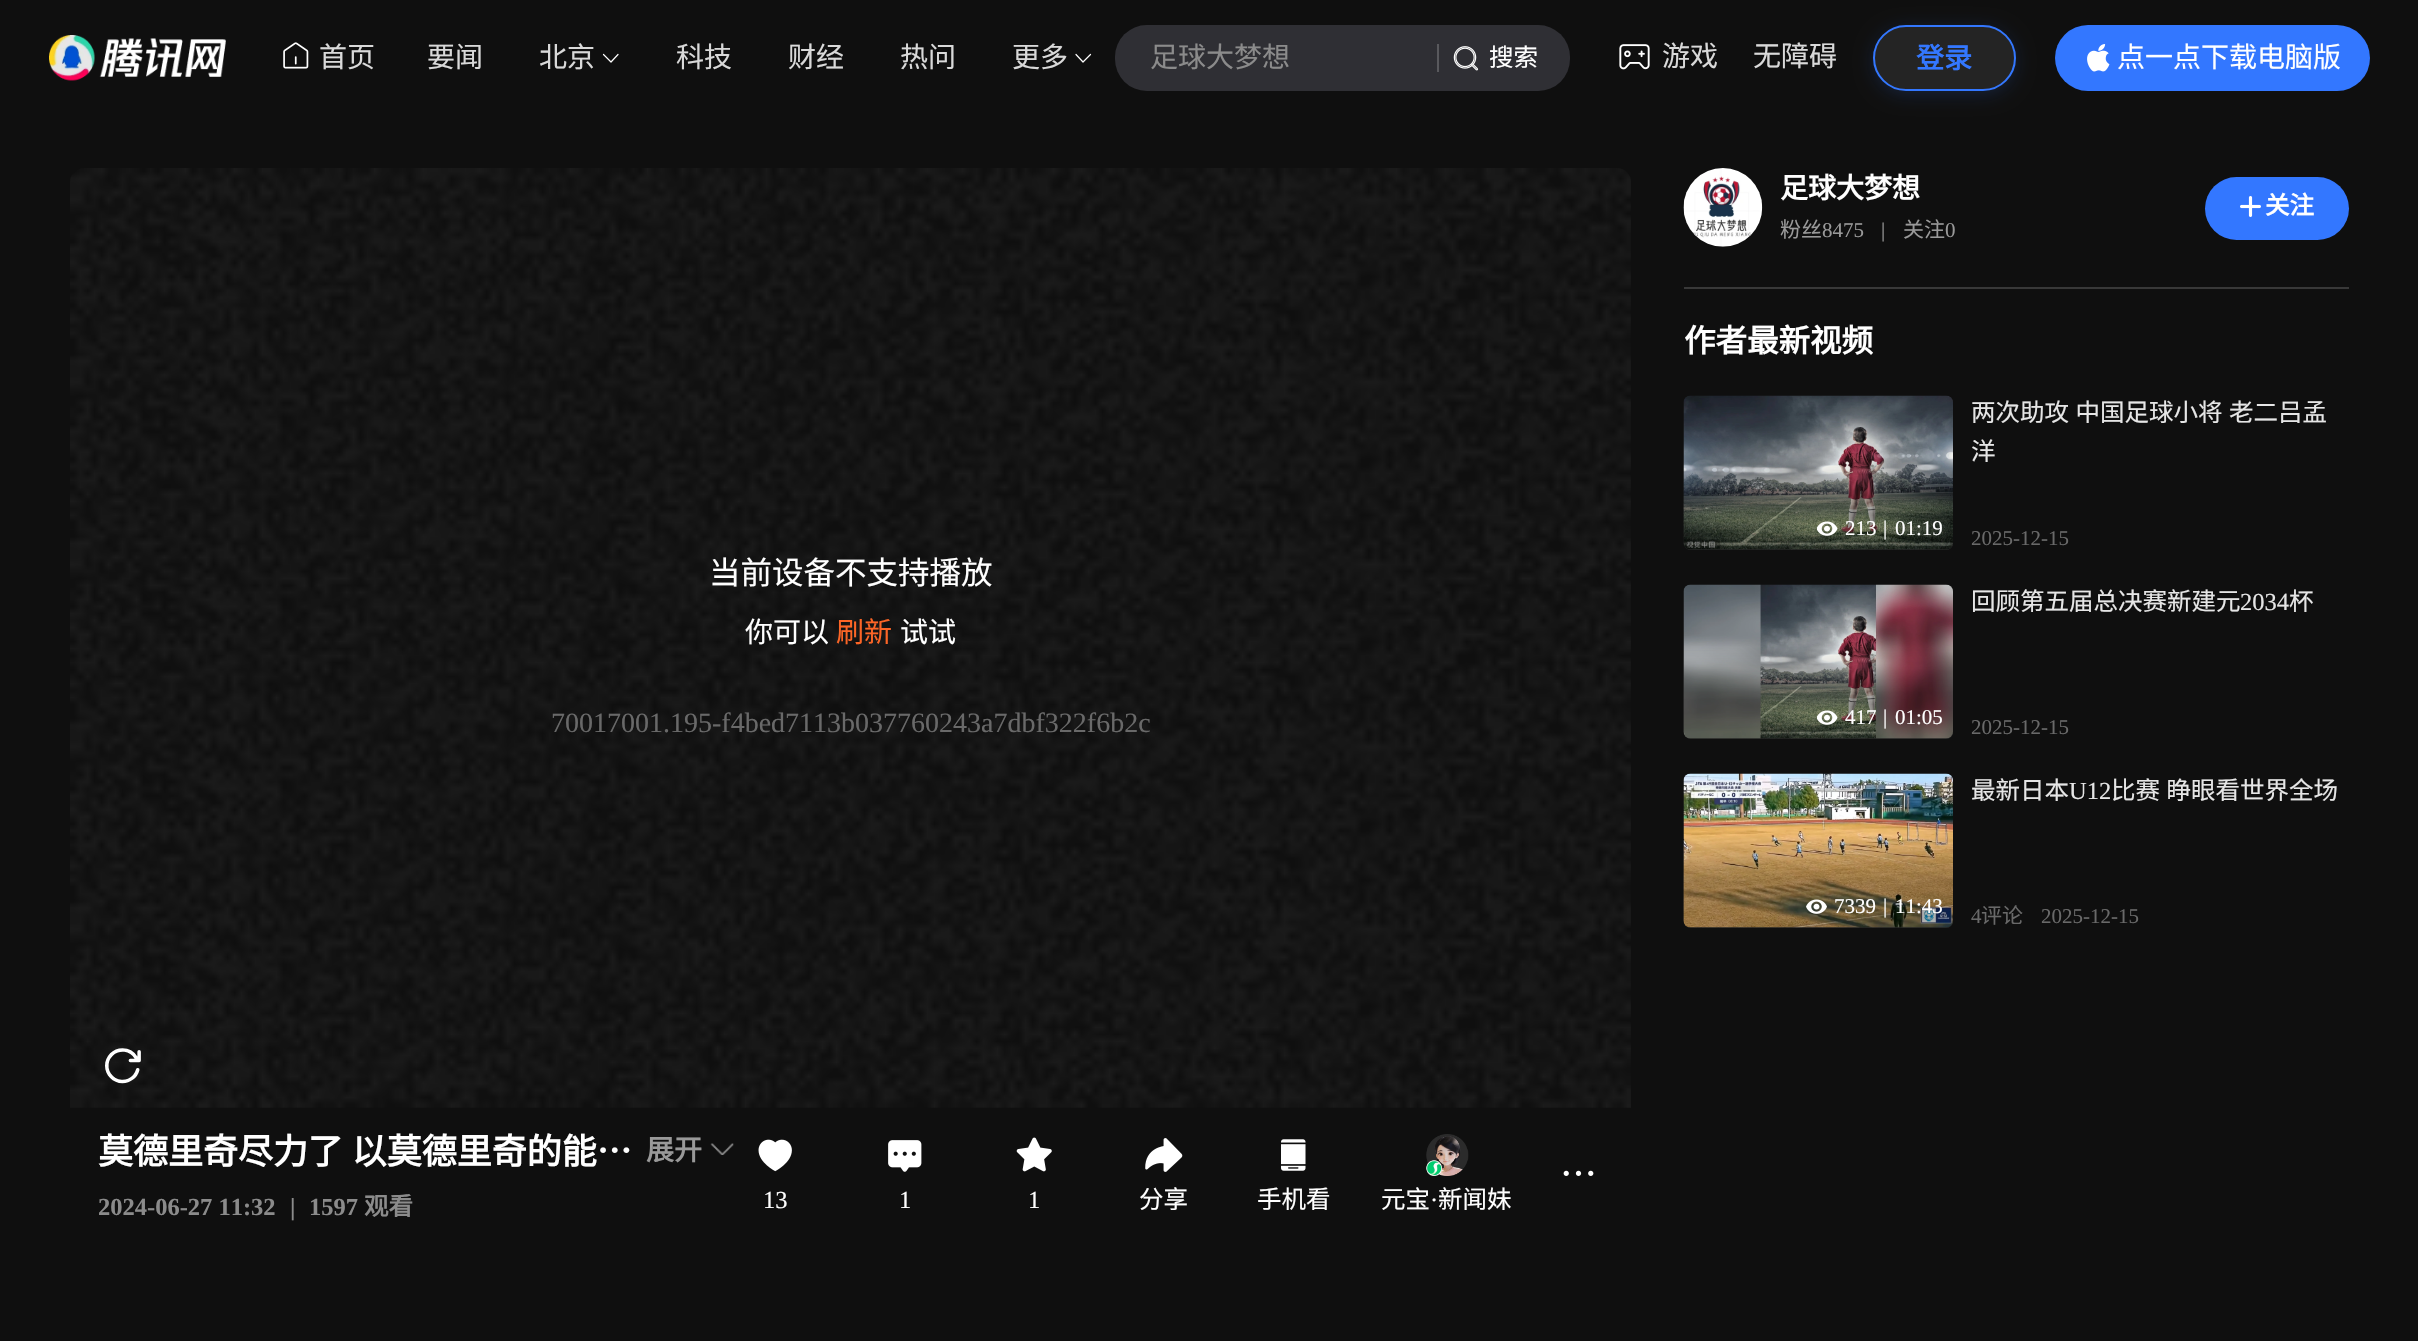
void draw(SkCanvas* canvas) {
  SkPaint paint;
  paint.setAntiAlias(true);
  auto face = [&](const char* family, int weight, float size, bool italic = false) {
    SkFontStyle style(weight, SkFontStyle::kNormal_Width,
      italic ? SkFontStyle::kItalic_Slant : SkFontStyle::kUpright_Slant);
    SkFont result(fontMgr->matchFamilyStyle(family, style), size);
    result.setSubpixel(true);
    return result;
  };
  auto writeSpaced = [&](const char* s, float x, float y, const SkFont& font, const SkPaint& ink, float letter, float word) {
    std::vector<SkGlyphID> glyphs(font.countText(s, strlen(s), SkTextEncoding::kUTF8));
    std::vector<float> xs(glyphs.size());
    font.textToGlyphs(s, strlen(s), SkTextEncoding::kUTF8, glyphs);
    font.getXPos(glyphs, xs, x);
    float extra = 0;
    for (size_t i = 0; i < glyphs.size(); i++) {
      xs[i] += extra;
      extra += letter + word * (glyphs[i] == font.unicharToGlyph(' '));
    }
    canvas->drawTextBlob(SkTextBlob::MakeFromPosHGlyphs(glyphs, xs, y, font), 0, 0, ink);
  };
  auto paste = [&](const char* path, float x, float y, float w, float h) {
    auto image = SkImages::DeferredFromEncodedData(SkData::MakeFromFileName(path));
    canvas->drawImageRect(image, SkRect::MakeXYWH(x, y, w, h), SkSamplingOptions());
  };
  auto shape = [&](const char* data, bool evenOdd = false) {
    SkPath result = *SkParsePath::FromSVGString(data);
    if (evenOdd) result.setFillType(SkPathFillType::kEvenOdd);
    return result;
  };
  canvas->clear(0xff0f0f0f);
  paste("img/1.png", 49, 35, 177, 46);
  paste("img/2.png", 283, 42, 26, 27);
  paint.setStroke(true);
  paint.setStrokeWidth(1.2f);
  paint.setStrokeCap(SkPaint::kRound_Cap);
  paint.setStrokeJoin(SkPaint::kRound_Join);
  paint.setColor(0xffffffff);
  canvas->drawPath(shape("M618 54.5L611 62L603.5 54.5"), paint);
  canvas->drawPath(shape("M1090.5 54.5L1083 62L1076 54.5"), paint);
  paint.setStroke(false);
  paint.setColor(0xff2f2f34);
  canvas->drawRoundRect(SkRect::MakeXYWH(1115, 25, 455, 66), 32, 32, paint);
  paint.setColor(0xff59595d);
  canvas->drawRect(SkRect::MakeXYWH(1437, 44, 2, 28), paint);
  paste("img/3.png", 1453, 46, 26, 25);
  paste("img/4.png", 1619, 44, 31, 26);
  canvas->save();
  canvas->clipPath(shape("M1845 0H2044V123H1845ZM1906 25H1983C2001 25 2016 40 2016 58C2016 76 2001 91 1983 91H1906C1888 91 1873 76 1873 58C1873 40 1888 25 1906 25Z", true), true);
  paint.setColor(0x293377ff);
  paint.setMaskFilter(SkMaskFilter::MakeBlur(kNormal_SkBlurStyle, 9));
  canvas->drawRoundRect(SkRect::MakeXYWH(1873, 28, 143, 67), 33.5f, 33.5f, paint);
  paint.setMaskFilter(nullptr);
  canvas->restore();
  paint.setColor(0x1ad9d9d9);
  canvas->drawRoundRect(SkRect::MakeXYWH(1874, 26, 141, 64), 32, 32, paint);
  paint.setStroke(true);
  paint.setStrokeWidth(2);
  paint.setStrokeCap(SkPaint::kButt_Cap);
  paint.setStrokeJoin(SkPaint::kMiter_Join);
  paint.setColor(0xff3377ff);
  canvas->drawRoundRect(SkRect::MakeXYWH(1874, 26, 141, 64), 32, 32, paint);
  paint.setStroke(false);
  canvas->drawRoundRect(SkRect::MakeXYWH(2055, 25, 315, 66), 33, 33, paint);
  paste("img/5.png", 2087, 44, 23, 28);
  paste("img/6.png", 70, 168, 1561, 940);
  paste("img/7.png", 710, 1143, 24, 12);
  paste("img/8.png", 1563, 1170, 31, 6);
  paste("img/9.png", 758, 1139, 34, 33);
  paste("img/10.png", 888, 1140, 34, 32);
  paste("img/11.png", 1016, 1137, 36, 35);
  paste("img/12.png", 1145, 1138, 38, 34);
  paste("img/13.png", 1281, 1139, 25, 32);
  paste("img/14.png", 1426, 1134, 43, 42);
  paste("img/15.png", 1426, 1160, 16, 16);
  paste("img/16.png", 1683, 168, 80, 79);
  canvas->drawRoundRect(SkRect::MakeXYWH(2205, 177, 144, 63), 31.5f, 31.5f, paint);
  paste("img/17.png", 2240, 196, 21, 21);
  paint.setColor(0xff383838);
  canvas->drawRect(SkRect::MakeXYWH(1684, 287, 665, 2), paint);
  paint.setColor(0xff333333);
  canvas->drawRoundRect(SkRect::MakeXYWH(1684, 396, 269, 154), 7, 7, paint);
  paste("img/18.png", 1683, 395, 270, 155);
  {
    const SkColor colors[] = {0x4d000000, 0x00000000};
    const float stops[] = {0.3f, 0.6f};
    const SkPoint ends[] = {{1818, 550}, {1818, 396}};
    paint.setShader(SkGradientShader::MakeLinear(ends, colors, stops, 2, SkTileMode::kClamp));
    paint.setAlpha(255);
  }
  canvas->drawRoundRect(SkRect::MakeXYWH(1684, 396, 269, 154), 7, 7, paint);
  paste("img/19.png", 1817, 521, 21, 15);
  paint.setShader(nullptr);
  paint.setColor(0xff333333);
  canvas->drawRoundRect(SkRect::MakeXYWH(1684, 585, 269, 154), 7, 7, paint);
  paste("img/20.png", 1683, 584, 270, 155);
  {
    const SkColor colors[] = {0x4d000000, 0x00000000};
    const float stops[] = {0.3f, 0.6f};
    const SkPoint ends[] = {{1818, 739}, {1818, 585}};
    paint.setShader(SkGradientShader::MakeLinear(ends, colors, stops, 2, SkTileMode::kClamp));
    paint.setAlpha(255);
  }
  canvas->drawRoundRect(SkRect::MakeXYWH(1684, 585, 269, 154), 7, 7, paint);
  paste("img/21.png", 1817, 710, 21, 15);
  paint.setShader(nullptr);
  paint.setColor(0xff333333);
  canvas->drawRoundRect(SkRect::MakeXYWH(1684, 774, 269, 154), 7, 7, paint);
  paste("img/22.png", 1683, 773, 270, 155);
  {
    const SkColor colors[] = {0x4d000000, 0x00000000};
    const float stops[] = {0.3f, 0.6f};
    const SkPoint ends[] = {{1818, 928}, {1818, 774}};
    paint.setShader(SkGradientShader::MakeLinear(ends, colors, stops, 2, SkTileMode::kClamp));
    paint.setAlpha(255);
  }
  canvas->drawRoundRect(SkRect::MakeXYWH(1684, 774, 269, 154), 7, 7, paint);
  paste("img/23.png", 1806, 899, 21, 15);
  auto f0 = face("Noto Sans CJK SC", 400, 28);
  paint.setShader(nullptr);
  paint.setColor(0xffd9d9d9);
  {
    const struct { const char* s; float x, y; } items[] = {
      {"首页", 319, 67},
      {"要闻", 427, 67},
      {"北京", 539, 67},
      {"科技", 676, 67},
      {"财经", 788, 67},
      {"热问", 900, 67},
      {"更多", 1012, 67},
    };
    for (auto [s, x, y] : items) {
      canvas->drawString(s, x, y, f0, paint);
    }
  }
  paint.setColor(0xff8b8b8b);
  canvas->drawString("足球大梦想", 1150, 67, f0, paint);
  auto f1 = face("Noto Sans CJK SC", 400, 24.5f);
  paint.setColor(0xffffffff);
  canvas->drawString("搜索", 1489, 66, f1, paint);
  paint.setColor(0xffd9d9d9);
  canvas->drawString("游戏", 1662, 66, f0, paint);
  canvas->drawString("无障碍", 1753, 66, f0, paint);
  auto f2 = face("Noto Sans CJK SC", 700, 28);
  paint.setColor(0xff3377ff);
  canvas->drawString("登录", 1916, 68, f2, paint);
  paint.setColor(0xffffffff);
  canvas->drawString("点一点下载电脑版", 2117, 67, f0, paint);
  auto f3 = face("Noto Sans CJK SC", 400, 31.5f);
  canvas->drawString("当前设备不支持播放", 709, 584, f3, paint);
  canvas->drawString("你可以", 745, 642, f0, paint);
  paint.setColor(0xfffc6526);
  canvas->drawString("刷新", 836, 642, f0, paint);
  paint.setColor(0xffffffff);
  canvas->drawString("试试", 900, 642, f0, paint);
  auto f4 = face("Liberation Serif", 400, 28);
  paint.setColor(0xff696969);
  canvas->drawString("70017001.195-f4bed7113b037760243a7dbf322f6b2c", 551, 732, f4, paint);
  auto f5 = face("Noto Sans CJK SC", 700, 35);
  paint.setColor(0xffffffff);
  writeSpaced("莫德里奇尽力了 以莫德里奇的能…", 98, 1164, f5, paint, 0, 1);
  paint.setColor(0xff999999);
  canvas->drawString("展开", 646, 1160, f2, paint);
  auto f6 = face("Liberation Serif", 700, 24.5f);
  paint.setColor(0xff8b8b8b);
  {
    const struct { const char* s; float x, y; } items[] = {
      {"2024-06-27 11:32", 98, 1215},
      {"|", 290, 1215},
      {"1597", 309, 1215},
    };
    for (auto [s, x, y] : items) {
      canvas->drawString(s, x, y, f6, paint);
    }
  }
  auto f7 = face("Noto Sans CJK SC", 700, 24.5f);
  canvas->drawString("观看", 364, 1215, f7, paint);
  auto f8 = face("Liberation Serif", 400, 24.5f);
  paint.setColor(0xffffffff);
  {
    const struct { const char* s; float x, y; } items[] = {
      {"13", 763, 1208},
      {"1", 899, 1208},
      {"1", 1028, 1208},
    };
    for (auto [s, x, y] : items) {
      canvas->drawString(s, x, y, f8, paint);
    }
  }
  {
    const struct { const char* s; float x, y; } items[] = {
      {"分享", 1139, 1208},
      {"手机看", 1257, 1208},
      {"元宝", 1381, 1208},
    };
    for (auto [s, x, y] : items) {
      canvas->drawString(s, x, y, f1, paint);
    }
  }
  canvas->drawString("·", 1430, 1208, f8, paint);
  canvas->drawString("新闻妹", 1438, 1208, f1, paint);
  canvas->drawString("足球大梦想", 1780, 198, f2, paint);
  auto f9 = face("Noto Sans CJK SC", 400, 21);
  paint.setColor(0xff999999);
  canvas->drawString("粉丝", 1780, 237, f9, paint);
  auto f10 = face("Liberation Serif", 400, 21);
  canvas->drawString("8475", 1822, 237, f10, paint);
  canvas->drawString("|", 1881, 237, f10, paint);
  canvas->drawString("关注", 1903, 237, f9, paint);
  canvas->drawString("0", 1945, 237, f10, paint);
  paint.setColor(0xffffffff);
  canvas->drawString("关注", 2265, 214, f7, paint);
  auto f11 = face("Noto Sans CJK SC", 700, 31.5f);
  canvas->drawString("作者最新视频", 1684, 352, f11, paint);
  {
    const struct { const char* s; float x, y; } items[] = {
      {"213", 1845, 535},
      {"|", 1883, 535},
      {"01:19", 1895, 535},
    };
    for (auto [s, x, y] : items) {
      canvas->drawString(s, x, y, f10, paint);
    }
  }
  paint.setColor(0xffe6e6e6);
  writeSpaced("两次助攻 中国足球小将 老二吕孟", 1971, 421, f1, paint, 0, 1);
  canvas->drawString("洋", 1971, 460, f1, paint);
  paint.setColor(0xff696969);
  canvas->drawString("2025-12-15", 1971, 545, f10, paint);
  paint.setColor(0xffffffff);
  {
    const struct { const char* s; float x, y; } items[] = {
      {"417", 1845, 724},
      {"|", 1883, 724},
      {"01:05", 1895, 724},
    };
    for (auto [s, x, y] : items) {
      canvas->drawString(s, x, y, f10, paint);
    }
  }
  paint.setColor(0xffe6e6e6);
  canvas->drawString("回顾第五届总决赛新建元", 1971, 610, f1, paint);
  canvas->drawString("2034", 2240, 610, f8, paint);
  canvas->drawString("杯", 2289, 610, f1, paint);
  paint.setColor(0xff696969);
  canvas->drawString("2025-12-15", 1971, 734, f10, paint);
  paint.setColor(0xffffffff);
  {
    const struct { const char* s; float x, y; } items[] = {
      {"7339", 1834, 913},
      {"|", 1883, 913},
      {"11:43", 1895, 913},
    };
    for (auto [s, x, y] : items) {
      canvas->drawString(s, x, y, f10, paint);
    }
  }
  paint.setColor(0xffe6e6e6);
  canvas->drawString("最新日本", 1971, 799, f1, paint);
  canvas->drawString("U12", 2069, 799, f8, paint);
  writeSpaced("比赛 睁眼看世界全场", 2111, 799, f1, paint, 0, 1);
  paint.setColor(0xff696969);
  canvas->drawString("4", 1971, 923, f10, paint);
  canvas->drawString("评论", 1981, 923, f9, paint);
  canvas->drawString("2025-12-15", 2041, 923, f10, paint);
}
